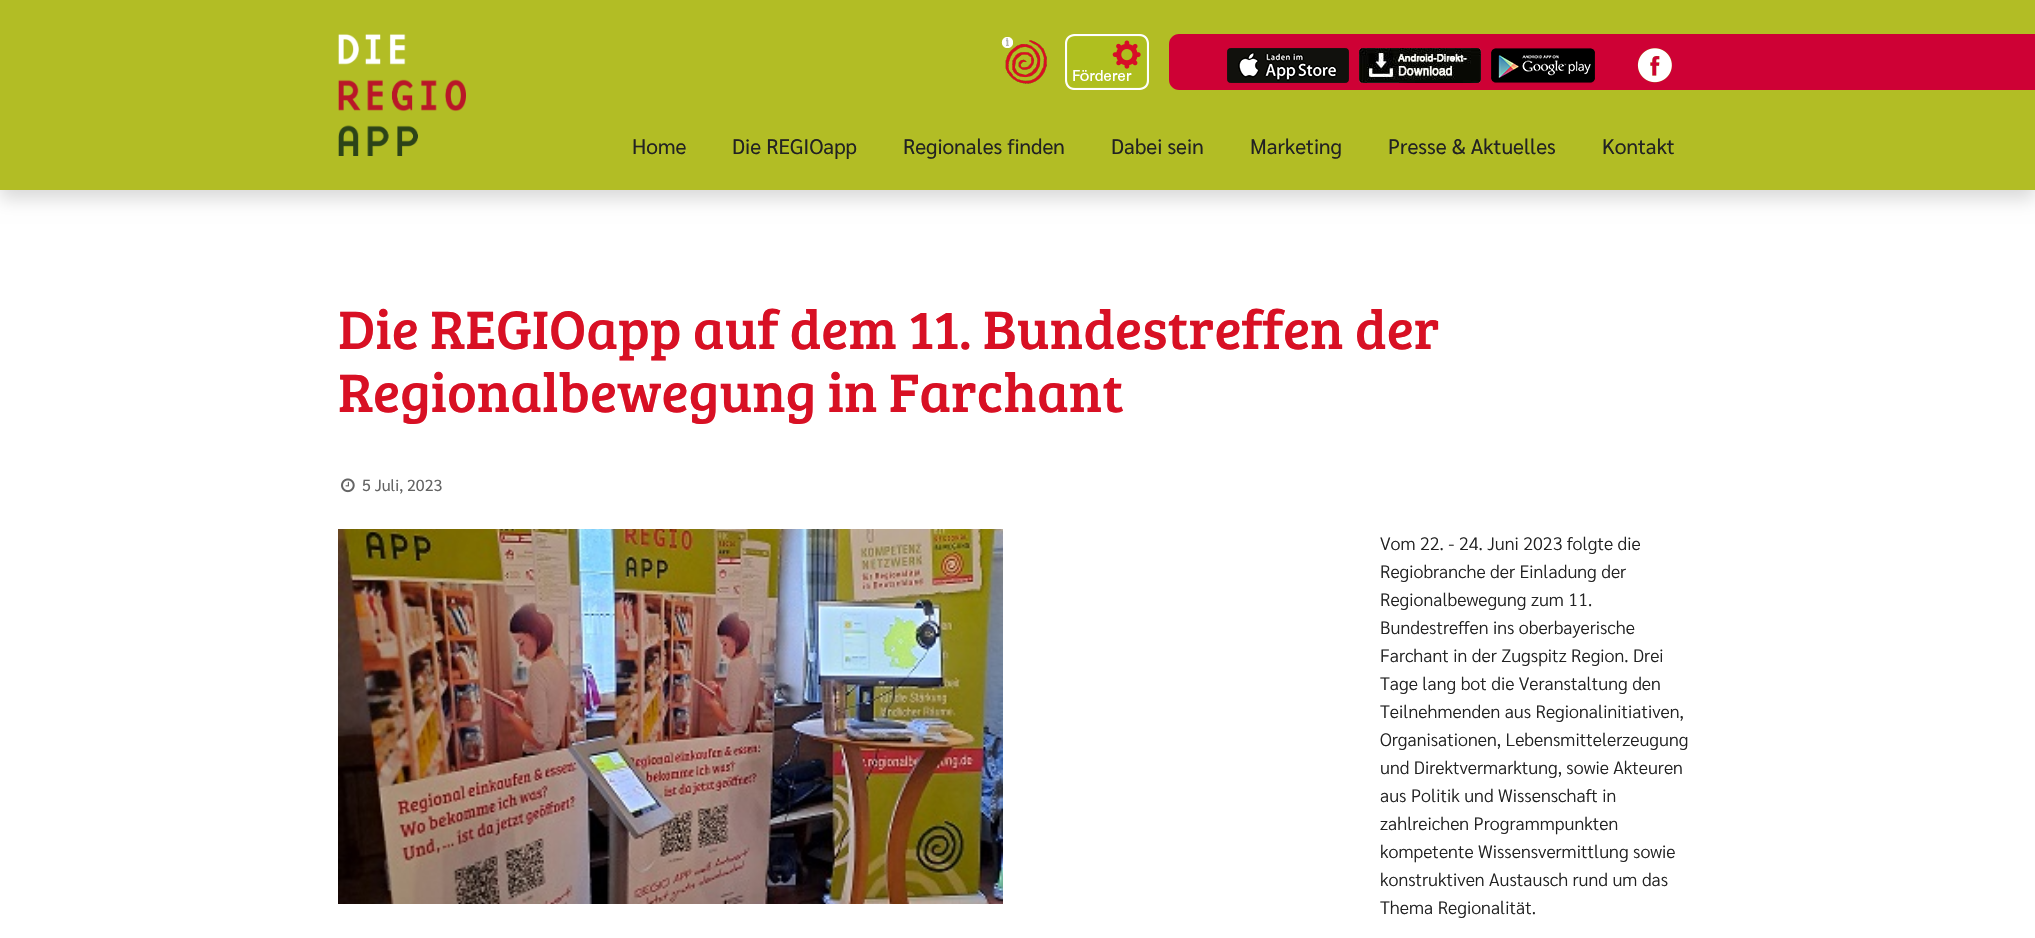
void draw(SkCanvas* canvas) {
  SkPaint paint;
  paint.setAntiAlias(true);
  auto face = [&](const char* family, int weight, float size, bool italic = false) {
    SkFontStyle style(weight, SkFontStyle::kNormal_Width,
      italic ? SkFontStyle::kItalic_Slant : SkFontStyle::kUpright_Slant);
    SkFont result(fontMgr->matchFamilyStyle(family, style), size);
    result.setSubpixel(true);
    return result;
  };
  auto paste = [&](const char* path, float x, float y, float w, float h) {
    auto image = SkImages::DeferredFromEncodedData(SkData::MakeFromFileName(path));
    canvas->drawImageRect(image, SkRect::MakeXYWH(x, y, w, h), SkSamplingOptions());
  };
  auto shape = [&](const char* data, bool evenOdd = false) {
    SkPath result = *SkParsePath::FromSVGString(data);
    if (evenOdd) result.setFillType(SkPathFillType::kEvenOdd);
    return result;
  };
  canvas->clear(0xffffffff);
  paint.setColor(0x26000000);
  paint.setMaskFilter(SkMaskFilter::MakeBlur(kNormal_SkBlurStyle, 8.5f));
  canvas->drawRect(SkRect::MakeXYWH(0, 9, 2035, 190), paint);
  paint.setMaskFilter(nullptr);
  paint.setColor(0xffb2bd25);
  canvas->drawRect(SkRect::MakeXYWH(0, 0, 2035, 190), paint);
  paste("img/1.png", 338, 34, 128, 122);
  paste("img/2.png", 1001, 37, 46, 47);
  paste("img/3.png", 1065, 34, 84, 56);
  paint.setColor(0xffce0135);
  canvas->drawPath(shape("M1179 34H1673V90H1179C1173.5 90 1169 85.5 1169 80V44C1169 38.5 1173.5 34 1179 34Z"), paint);
  paste("img/4.png", 1227, 48, 122, 35);
  paste("img/5.png", 1359, 48, 122, 35);
  paste("img/6.png", 1491, 48, 104, 35);
  paste("img/7.png", 1637, 48, 35, 35);
  canvas->drawRect(SkRect::MakeXYWH(1673, 34, 362, 56), paint);
  paste("img/8.png", 341, 478, 14, 15);
  paste("img/9.png", 338, 529, 665, 375);
  auto f0 = face("Sarabun", 400, 21);
  paint.setColor(0xff222222);
  {
    const struct { const char* s; float x, y; } items[] = {
      {"Home", 632, 154},
      {"Die REGIOapp", 732, 154},
      {"Regionales finden", 903, 154},
      {"Dabei sein", 1111, 154},
      {"Marketing", 1250, 154},
      {"Presse & Aktuelles", 1388, 154},
      {"Kontakt", 1602, 154},
    };
    for (auto [s, x, y] : items) {
      canvas->drawString(s, x, y, f0, paint);
    }
  }
  auto f1 = face("Bree Serif", 400, 56);
  paint.setColor(0xffd81024);
  canvas->drawString("Die REGIOapp auf dem 11. Bundestreffen der", 338, 349, f1, paint);
  canvas->drawString("Regionalbewegung in Farchant", 338, 412, f1, paint);
  auto f2 = face("Sarabun", 400, 16);
  paint.setColor(0xff646464);
  canvas->drawString("5 Juli, 2023", 362, 491, f2, paint);
  auto f3 = face("Sarabun", 300, 18);
  paint.setColor(0xff222222);
  {
    const struct { const char* s; float x, y; } items[] = {
      {"Vom 22. - 24. Juni 2023 folgte die", 1380, 550},
      {"Regiobranche der Einladung der", 1380, 578},
      {"Regionalbewegung zum 11.", 1380, 606},
      {"Bundestreffen ins oberbayerische", 1380, 634},
      {"Farchant in der Zugspitz Region. Drei", 1380, 662},
      {"Tage lang bot die Veranstaltung den", 1380, 690},
      {"Teilnehmenden aus Regionalinitiativen,", 1380, 718},
      {"Organisationen, Lebensmittelerzeugung", 1380, 746},
      {"und Direktvermarktung, sowie Akteuren", 1380, 774},
      {"aus Politik und Wissenschaft in", 1380, 802},
      {"zahlreichen Programmpunkten", 1380, 830},
      {"kompetente Wissensvermittlung sowie", 1380, 858},
      {"konstruktiven Austausch rund um das", 1380, 886},
      {"Thema Regionalität.", 1380, 914},
    };
    for (auto [s, x, y] : items) {
      canvas->drawString(s, x, y, f3, paint);
    }
  }
}
